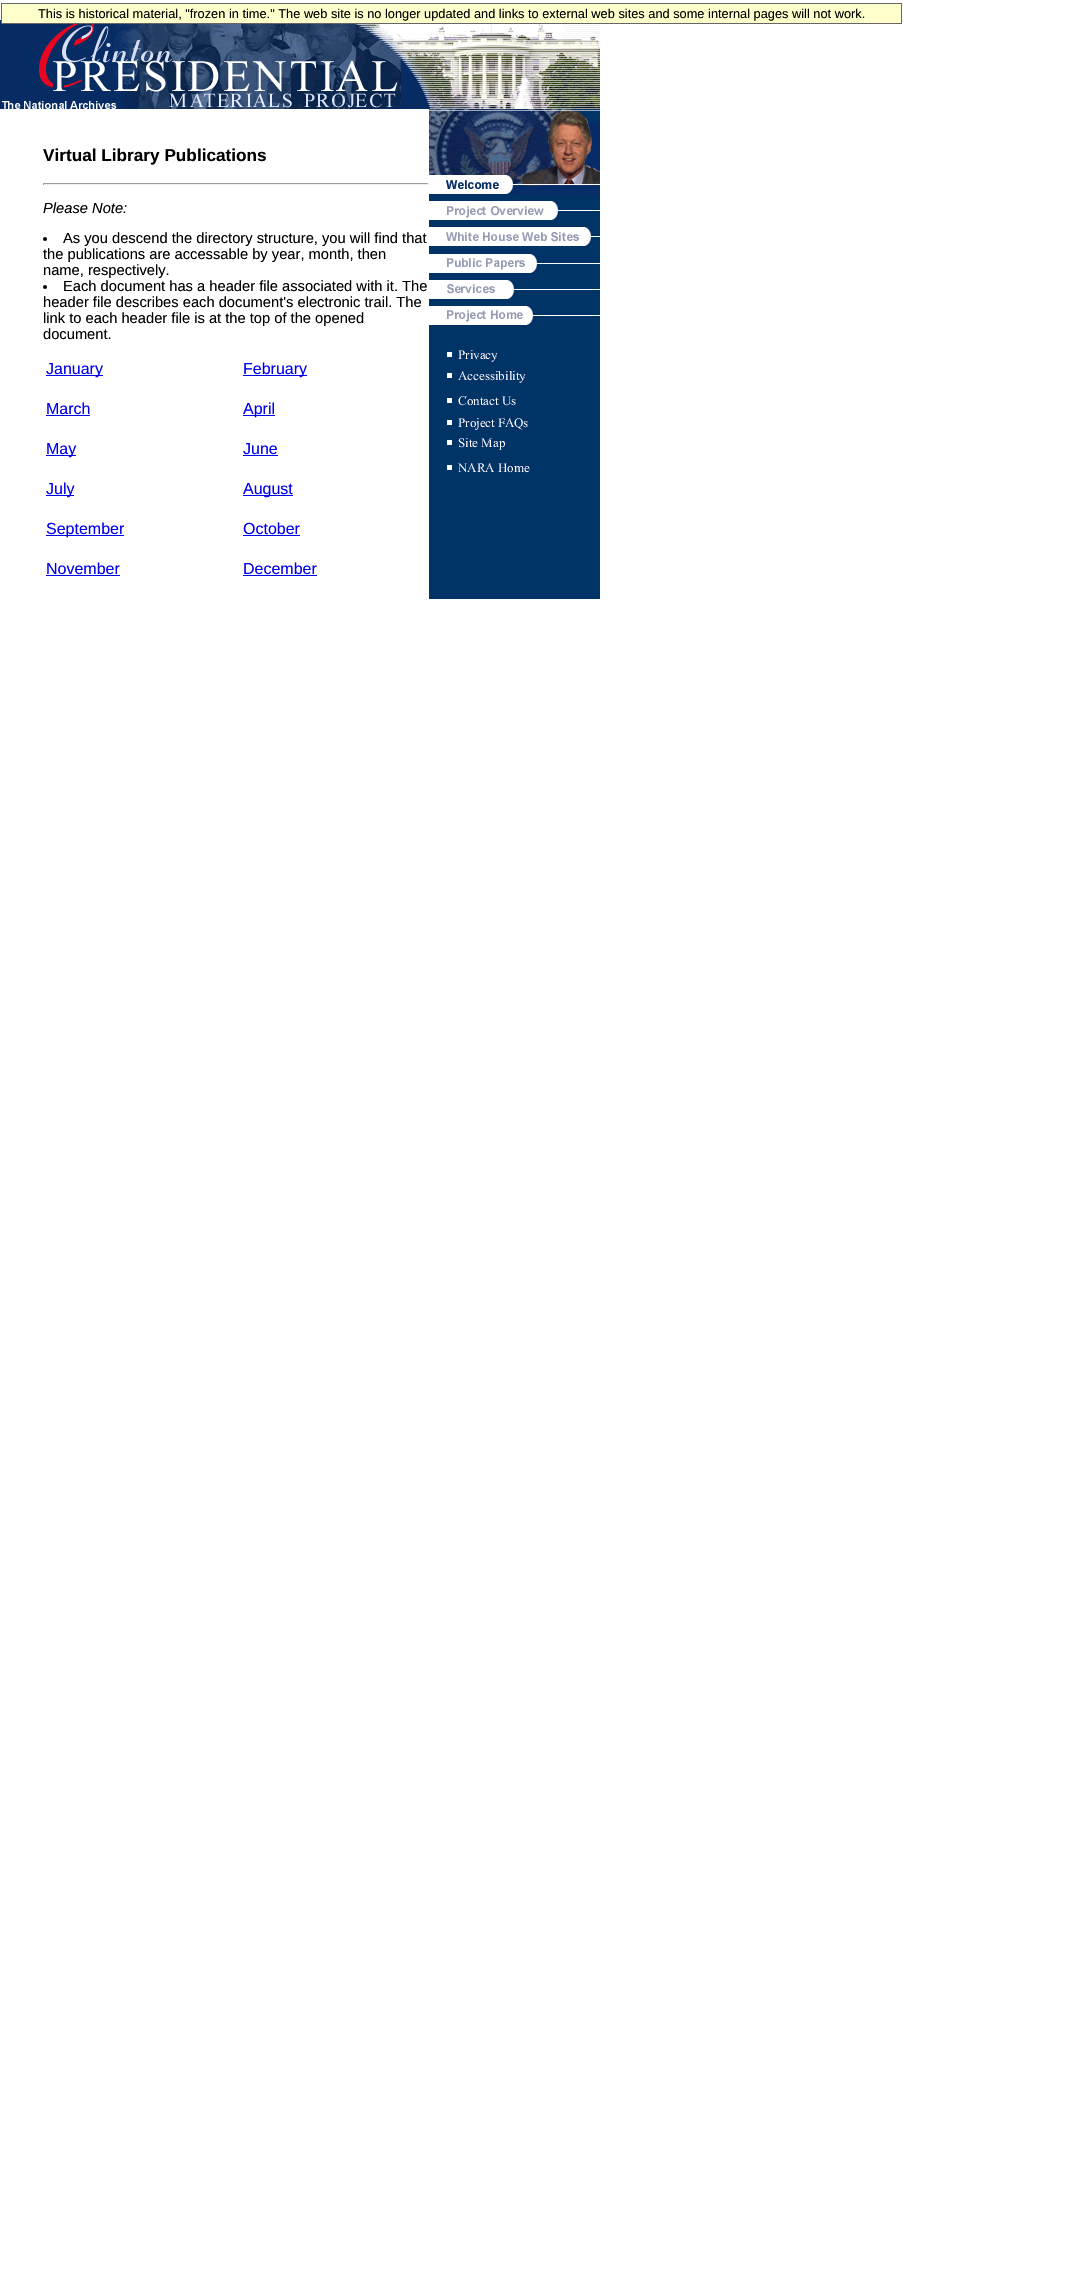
void draw(SkCanvas* canvas) {
  SkPaint paint;
  paint.setAntiAlias(true);
  auto face = [&](const char* family, int weight, float size, bool italic = false) {
    SkFontStyle style(weight, SkFontStyle::kNormal_Width,
      italic ? SkFontStyle::kItalic_Slant : SkFontStyle::kUpright_Slant);
    SkFont result(fontMgr->matchFamilyStyle(family, style), size);
    result.setSubpixel(true);
    return result;
  };
  auto paste = [&](const char* path, float x, float y, float w, float h) {
    auto image = SkImages::DeferredFromEncodedData(SkData::MakeFromFileName(path));
    canvas->drawImageRect(image, SkRect::MakeXYWH(x, y, w, h), SkSamplingOptions());
  };
  canvas->clear(0xffffffff);
  paste("img/1.png", 0, 20, 429, 89);
  paint.setColor(0xffffffcc);
  canvas->drawRect(SkRect::MakeXYWH(1.5f, 3.5f, 900, 20), paint);
  paint.setStroke(true);
  paint.setStrokeWidth(1);
  paint.setColor(0xff666666);
  canvas->drawRect(SkRect::MakeXYWH(1.5f, 3.5f, 900, 20), paint);
  paint.setStroke(false);
  paint.setColor(0xff003366);
  canvas->drawRect(SkRect::MakeXYWH(429, 195, 171, 404), paint);
  paste("img/2.png", 429, 24, 171, 99);
  paste("img/3.png", 429, 123, 171, 27);
  paste("img/4.png", 429, 150, 171, 24);
  paste("img/5.png", 429, 174, 171, 21);
  paste("img/6.png", 429, 201, 171, 19);
  paste("img/7.png", 429, 227, 171, 19);
  paste("img/8.png", 429, 254, 171, 19);
  paste("img/9.png", 429, 280, 171, 19);
  paste("img/10.png", 429, 306, 171, 19);
  paste("img/11.png", 447, 350, 51, 12);
  paste("img/12.png", 447, 371, 79, 12);
  paste("img/13.png", 447, 396, 69, 10);
  paste("img/14.png", 447, 418, 81, 12);
  paste("img/15.png", 447, 438, 58, 12);
  paste("img/16.png", 447, 463, 83, 10);
  {
    const struct { float x, y, w, h; SkColor color; } items[] = {
      {43, 183, 386, 1, 0xff9f9f9f},
      {428, 183, 1, 2, 0xffeeeeee},
      {43, 184, 386, 1, 0xffeeeeee},
      {43, 183, 1, 2, 0xff9f9f9f},
    };
    for (auto [x, y, w, h, color] : items) {
      paint.setColor(color);
      canvas->drawRect(SkRect::MakeXYWH(x, y, w, h), paint);
    }
  }
  paint.setColor(0xff000000);
  canvas->drawCircle(45, 239, 2, paint);
  canvas->drawCircle(45, 287, 2, paint);
  {
    const struct { float x, y, w, h; SkColor color; } items[] = {
      {46, 375, 57, 1, 0xff0000ee},
      {243, 375, 64, 1, 0xff0000ee},
      {46, 415, 44, 1, 0xff0000ee},
      {243, 415, 32, 1, 0xff0000ee},
      {46, 455, 30, 1, 0xff0000ee},
      {243, 455, 35, 1, 0xff0000ee},
      {46, 495, 28, 1, 0xff0000ee},
      {243, 495, 50, 1, 0xff0000ee},
      {46, 535, 78, 1, 0xff0000ee},
      {243, 535, 57, 1, 0xff0000ee},
      {46, 575, 74, 1, 0xff0000ee},
      {243, 575, 74, 1, 0xff0000ee},
    };
    for (auto [x, y, w, h, color] : items) {
      paint.setColor(color);
      canvas->drawRect(SkRect::MakeXYWH(x, y, w, h), paint);
    }
  }
  auto f0 = face("Liberation Sans", 400, 12.8f);
  paint.setColor(0xff000000);
  canvas->drawString("This is historical material, \"frozen in time.\" The web site is no longer updated and links to external web sites and some internal pages will not work.", 38, 18, f0, paint);
  auto f1 = face("Liberation Sans", 700, 17.2f);
  canvas->drawString("Virtual Library Publications", 43, 161, f1, paint);
  auto f2 = face("Liberation Sans", 400, 14.7f, true);
  canvas->drawString("Please Note:", 43, 213, f2, paint);
  auto f3 = face("Liberation Sans", 400, 14.7f);
  {
    const struct { const char* s; float x, y; } items[] = {
      {"As you descend the directory structure, you will find that", 63, 243},
      {"the publications are accessable by year, month, then", 43, 259},
      {"name, respectively.", 43, 275},
      {"Each document has a header file associated with it. The", 63, 291},
      {"header file describes each document's electronic trail. The", 43, 307},
      {"link to each header file is at the top of the opened", 43, 323},
      {"document.", 43, 339},
    };
    for (auto [s, x, y] : items) {
      canvas->drawString(s, x, y, f3, paint);
    }
  }
  auto f4 = face("Liberation Sans", 400, 16);
  paint.setColor(0xff0000ee);
  {
    const struct { const char* s; float x, y; } items[] = {
      {"January", 46, 374},
      {"February", 243, 374},
      {"March", 46, 414},
      {"April", 243, 414},
      {"May", 46, 454},
      {"June", 243, 454},
      {"July", 46, 494},
      {"August", 243, 494},
      {"September", 46, 534},
      {"October", 243, 534},
      {"November", 46, 574},
      {"December", 243, 574},
    };
    for (auto [s, x, y] : items) {
      canvas->drawString(s, x, y, f4, paint);
    }
  }
}
